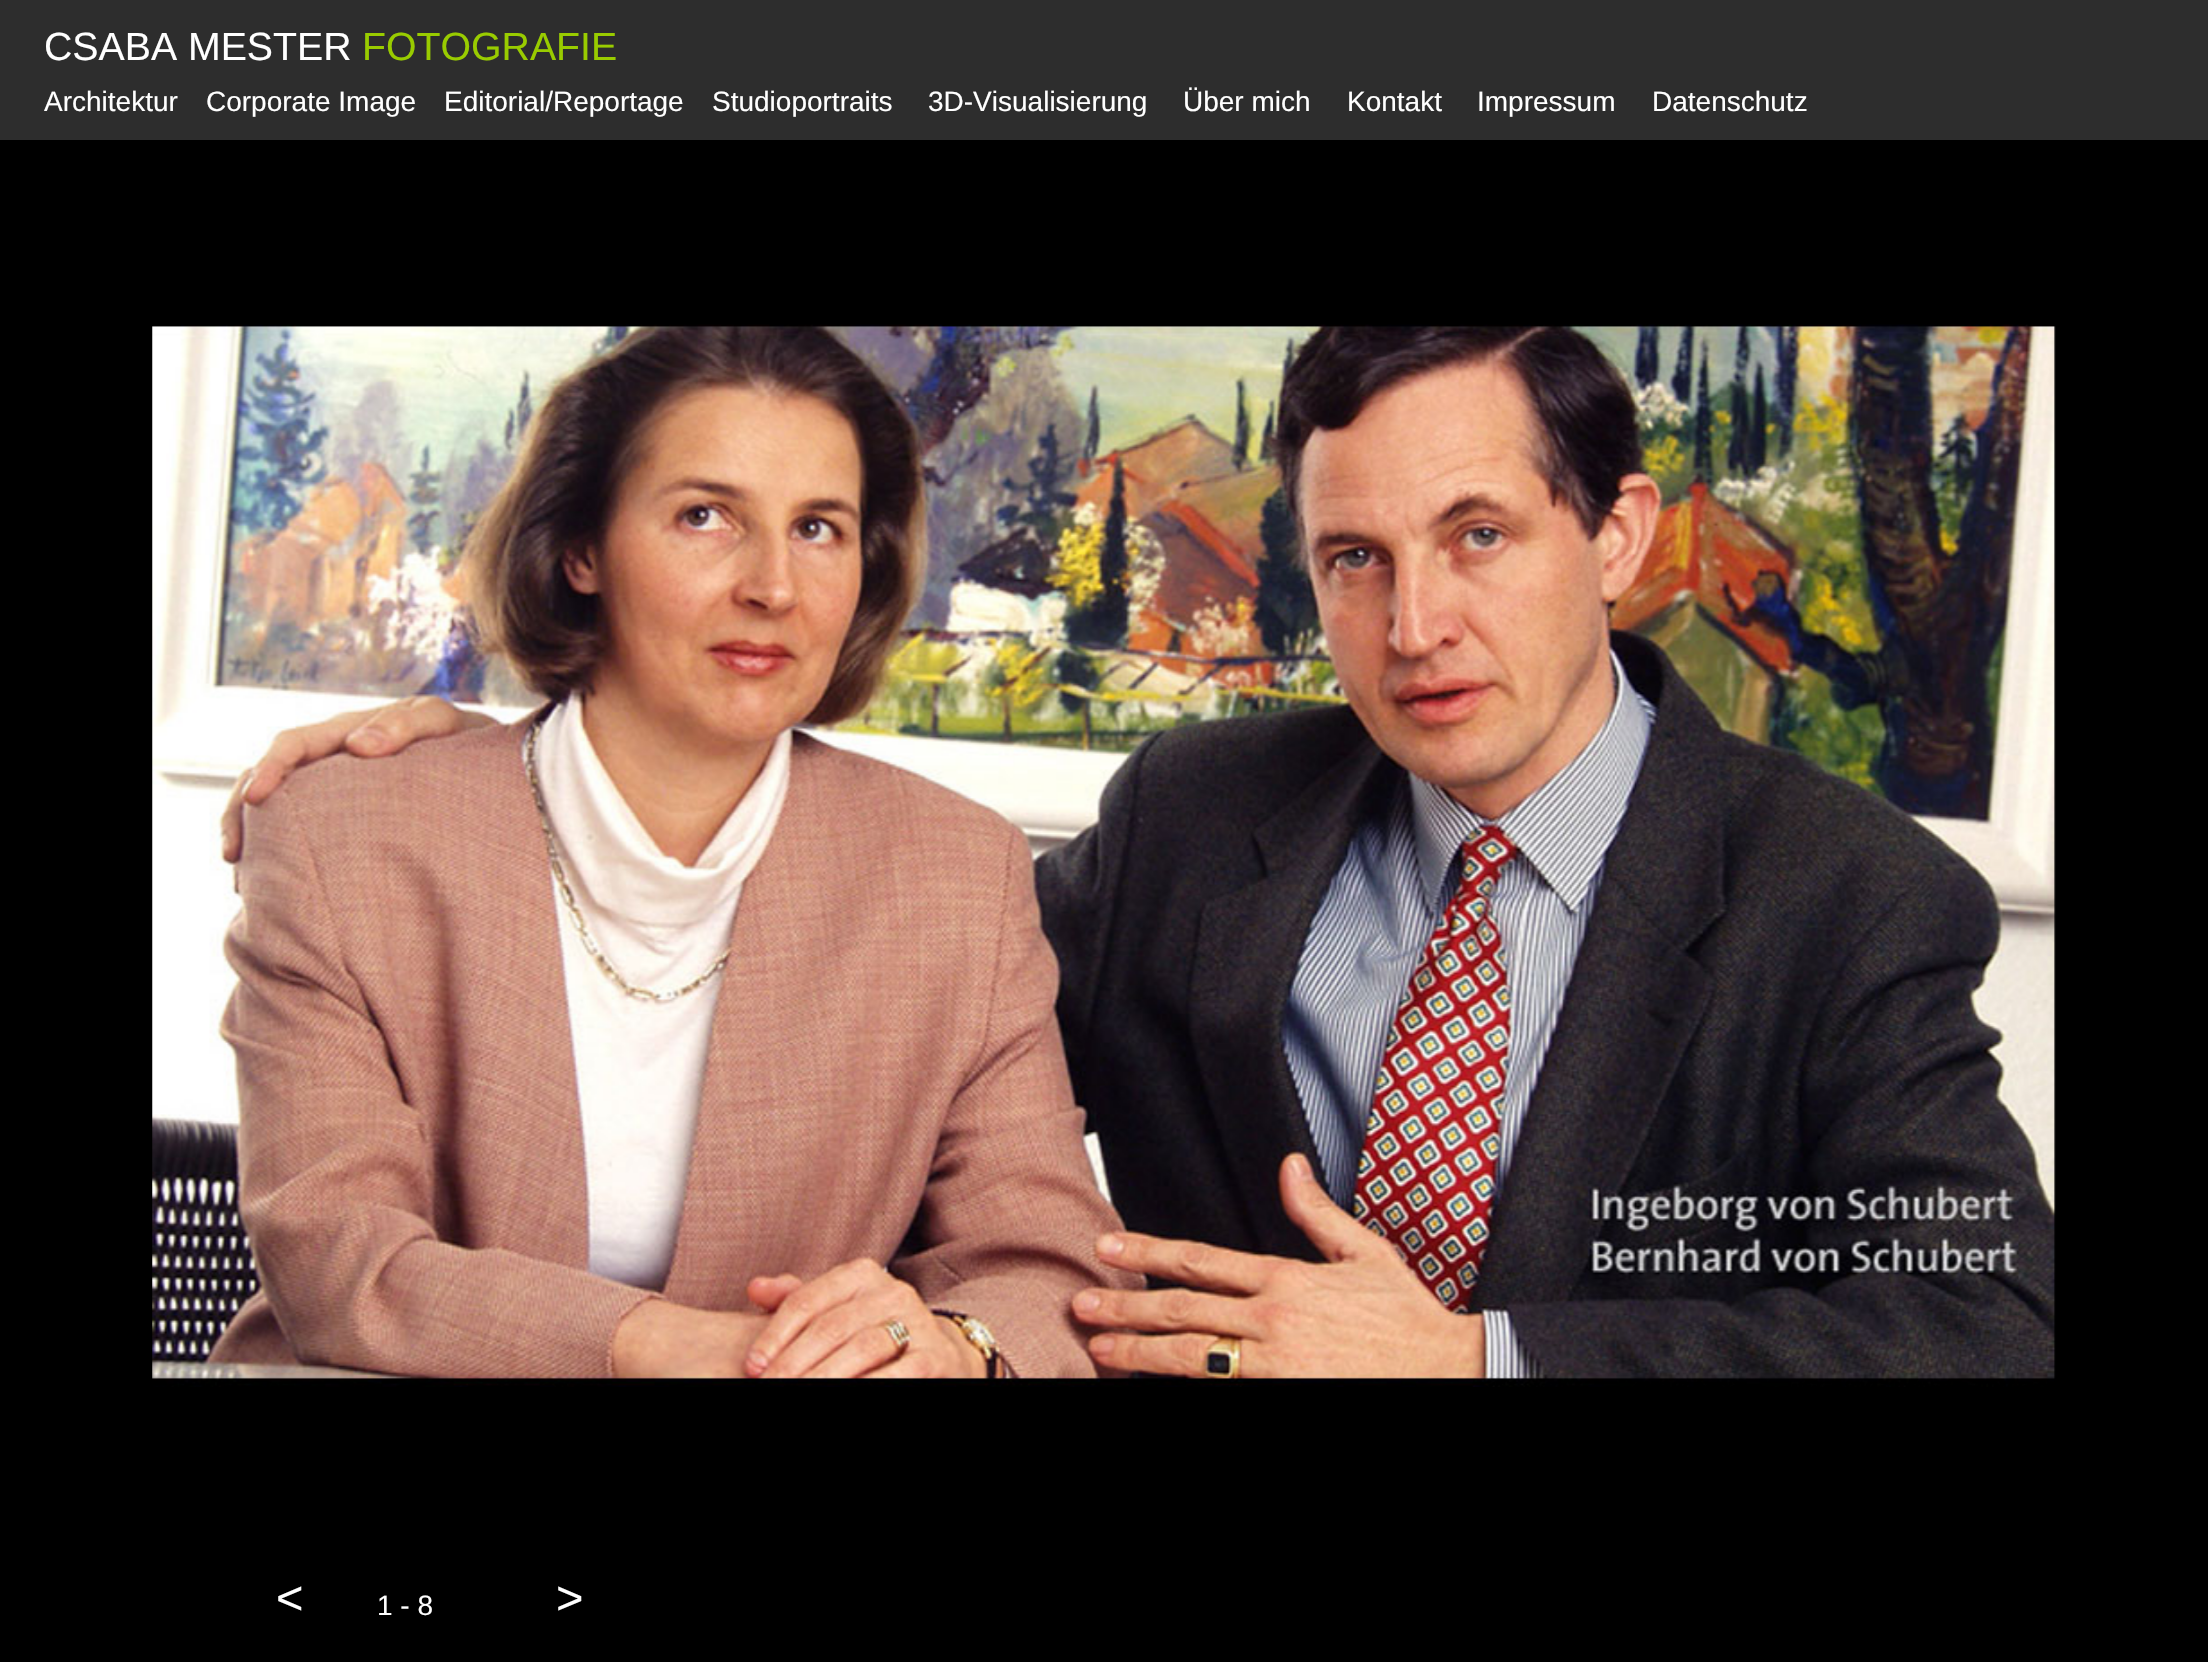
void draw(SkCanvas* canvas) {
  SkPaint paint;
  paint.setAntiAlias(true);
  auto face = [&](const char* family, int weight, float size, bool italic = false) {
    SkFontStyle style(weight, SkFontStyle::kNormal_Width,
      italic ? SkFontStyle::kItalic_Slant : SkFontStyle::kUpright_Slant);
    SkFont result(fontMgr->matchFamilyStyle(family, style), size);
    result.setSubpixel(true);
    return result;
  };
  auto paste = [&](const char* path, float x, float y, float w, float h) {
    auto image = SkImages::DeferredFromEncodedData(SkData::MakeFromFileName(path));
    canvas->drawImageRect(image, SkRect::MakeXYWH(x, y, w, h), SkSamplingOptions());
  };
  canvas->clear(0xff000000);
  paint.setColor(0xff2d2d2d);
  canvas->drawRect(SkRect::MakeXYWH(0, 0, 2208, 140), paint);
  paste("img/1.png", 152, 324, 1904, 1063);
  auto f0 = face("Liberation Sans", 400, 39.25f);
  paint.setColor(0xffffffff);
  canvas->drawString("CSABA MESTER", 44, 60, f0, paint);
  paint.setColor(0xff99cc00);
  canvas->drawString("FOTOGRAFIE", 362, 60, f0, paint);
  auto f1 = face("Liberation Sans", 400, 28);
  paint.setColor(0xffffffff);
  {
    const struct { const char* s; float x, y; } items[] = {
      {"Architektur", 44, 111},
      {"Corporate Image", 206, 111},
      {"Editorial/Reportage", 444, 111},
      {"Studioportraits", 712, 111},
      {"3D-Visualisierung", 928, 111},
      {"Über mich", 1183, 111},
      {"Kontakt", 1347, 111},
      {"Impressum", 1477, 111},
      {"Datenschutz", 1652, 111},
    };
    for (auto [s, x, y] : items) {
      canvas->drawString(s, x, y, f1, paint);
    }
  }
  auto f2 = face("Liberation Sans", 400, 47);
  canvas->drawString("<", 276, 1614, f2, paint);
  canvas->drawString(">", 556, 1614, f2, paint);
  canvas->drawString("1 - 8", 377, 1615, f1, paint);
}
